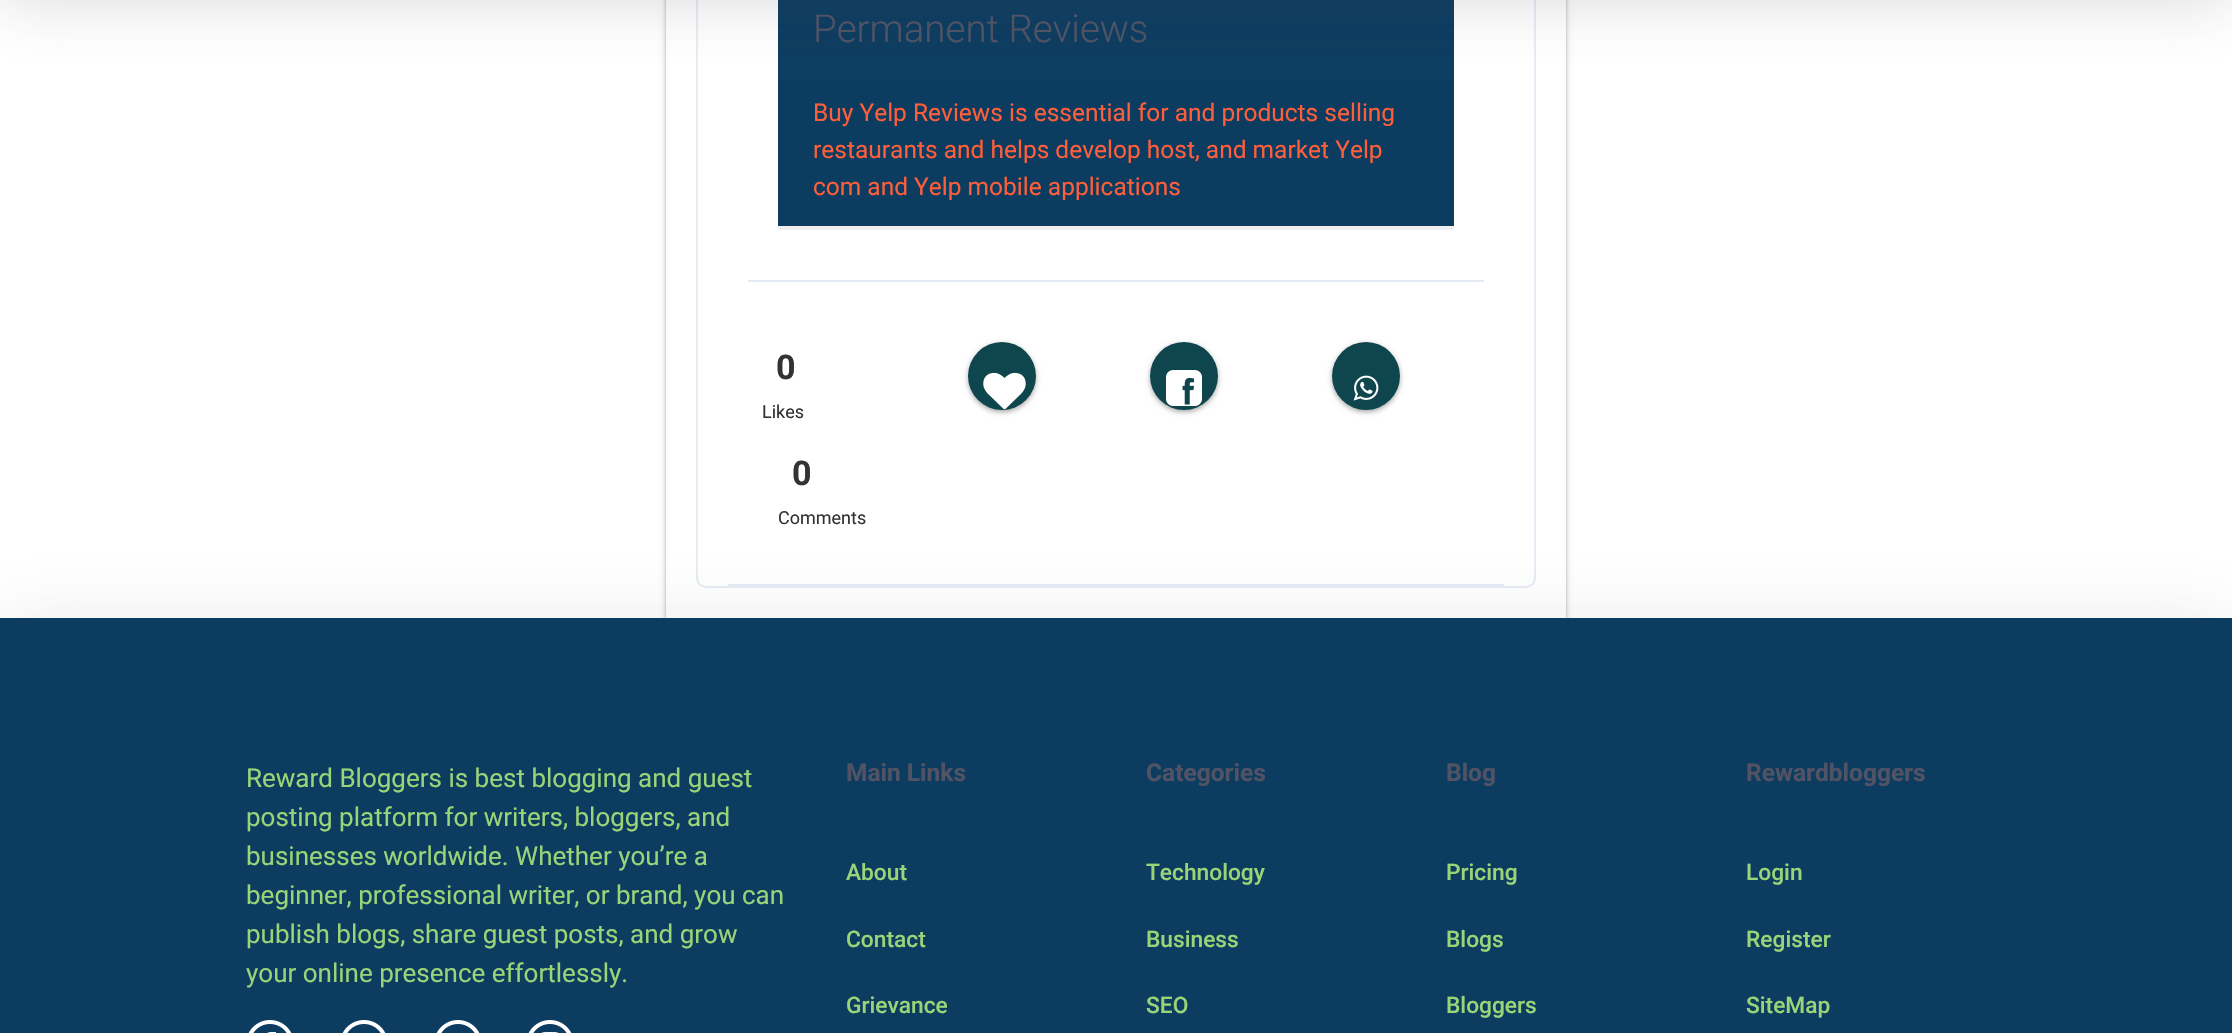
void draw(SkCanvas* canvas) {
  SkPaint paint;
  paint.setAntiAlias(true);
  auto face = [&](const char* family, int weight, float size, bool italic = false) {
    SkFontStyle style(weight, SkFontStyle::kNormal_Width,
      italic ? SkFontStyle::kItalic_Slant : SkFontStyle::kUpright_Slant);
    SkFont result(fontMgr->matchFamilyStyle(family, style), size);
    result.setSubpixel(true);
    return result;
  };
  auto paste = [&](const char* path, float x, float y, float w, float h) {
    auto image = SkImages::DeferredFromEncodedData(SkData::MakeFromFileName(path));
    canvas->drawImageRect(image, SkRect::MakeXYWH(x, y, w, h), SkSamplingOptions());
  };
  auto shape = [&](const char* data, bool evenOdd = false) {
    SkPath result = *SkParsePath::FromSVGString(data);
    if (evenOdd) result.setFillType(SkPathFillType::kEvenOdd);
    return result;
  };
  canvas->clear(0xffffffff);
  canvas->save();
  canvas->clipPath(shape("M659 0H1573V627H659ZM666-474H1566V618H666Z", true), true);
  paint.setColor(0x3d000000);
  paint.setMaskFilter(SkMaskFilter::MakeBlur(kNormal_SkBlurStyle, 2));
  canvas->drawRect(SkRect::MakeXYWH(666, -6, 900, 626), paint);
  paint.setMaskFilter(nullptr);
  canvas->restore();
  canvas->save();
  canvas->clipPath(shape("M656 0H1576V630H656ZM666-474H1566V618H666Z", true), true);
  paint.setColor(0x1f000000);
  paint.setMaskFilter(SkMaskFilter::MakeBlur(kNormal_SkBlurStyle, 3));
  canvas->drawRect(SkRect::MakeXYWH(666, -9, 900, 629), paint);
  paint.setMaskFilter(nullptr);
  canvas->restore();
  paint.setStroke(true);
  paint.setStrokeWidth(2);
  paint.setColor(0xffe6ecf5);
  canvas->drawRoundRect(SkRect::MakeXYWH(697, -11, 838, 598), 9, 9, paint);
  paint.setStroke(false);
  paint.setColor(0xff0c3c60);
  canvas->drawRect(SkRect::MakeXYWH(778, 0, 676, 226), paint);
  paint.setColor(0x333f4257);
  paint.setMaskFilter(SkMaskFilter::MakeBlur(kNormal_SkBlurStyle, 34));
  canvas->drawRect(SkRect::MakeXYWH(0, -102, 2232, 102), paint);
  paint.setMaskFilter(nullptr);
  {
    const struct { float x, y, w, h; SkColor color; } items[] = {
      {728, 584, 776, 2, 0xffe6ecf5},
      {778, 226, 676, 4, 0xffefefef},
      {748, 280, 736, 2, 0xffe6ecf5},
    };
    for (auto [x, y, w, h, color] : items) {
      paint.setColor(color);
      canvas->drawRect(SkRect::MakeXYWH(x, y, w, h), paint);
    }
  }
  paint.setColor(0x3d000000);
  paint.setMaskFilter(SkMaskFilter::MakeBlur(kNormal_SkBlurStyle, 2));
  canvas->drawRoundRect(SkRect::MakeXYWH(968, 344, 68, 68), 34, 34, paint);
  paint.setMaskFilter(nullptr);
  paint.setColor(0x1f000000);
  paint.setMaskFilter(SkMaskFilter::MakeBlur(kNormal_SkBlurStyle, 3));
  canvas->drawRoundRect(SkRect::MakeXYWH(968, 344, 68, 68), 34, 34, paint);
  paint.setMaskFilter(nullptr);
  paint.setColor(0xff0f454d);
  canvas->drawCircle(1002, 376, 34, paint);
  paste("img/1.png", 983, 372, 43, 38);
  paint.setColor(0x3d000000);
  paint.setMaskFilter(SkMaskFilter::MakeBlur(kNormal_SkBlurStyle, 2));
  canvas->drawRoundRect(SkRect::MakeXYWH(1150, 344, 68, 68), 34, 34, paint);
  paint.setMaskFilter(nullptr);
  paint.setColor(0x1f000000);
  paint.setMaskFilter(SkMaskFilter::MakeBlur(kNormal_SkBlurStyle, 3));
  canvas->drawRoundRect(SkRect::MakeXYWH(1150, 344, 68, 68), 34, 34, paint);
  paint.setMaskFilter(nullptr);
  paint.setColor(0xff0f454d);
  canvas->drawCircle(1184, 376, 34, paint);
  paste("img/2.png", 1166, 370, 36, 36);
  paint.setColor(0x3d000000);
  paint.setMaskFilter(SkMaskFilter::MakeBlur(kNormal_SkBlurStyle, 2));
  canvas->drawRoundRect(SkRect::MakeXYWH(1332, 344, 68, 68), 34, 34, paint);
  paint.setMaskFilter(nullptr);
  paint.setColor(0x1f000000);
  paint.setMaskFilter(SkMaskFilter::MakeBlur(kNormal_SkBlurStyle, 3));
  canvas->drawRoundRect(SkRect::MakeXYWH(1332, 344, 68, 68), 34, 34, paint);
  paint.setMaskFilter(nullptr);
  paint.setColor(0xff0f454d);
  canvas->drawCircle(1366, 376, 34, paint);
  paste("img/3.png", 1353, 375, 26, 26);
  paint.setColor(0x1a3f4257);
  paint.setMaskFilter(SkMaskFilter::MakeBlur(kNormal_SkBlurStyle, 34));
  canvas->drawRect(SkRect::MakeXYWH(0, 618, 2232, 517), paint);
  paint.setMaskFilter(nullptr);
  paint.setColor(0xff0c3c60);
  canvas->drawRect(SkRect::MakeXYWH(0, 618, 2232, 415), paint);
  paste("img/4.png", 248, 1020, 44, 13);
  paste("img/5.png", 342, 1020, 44, 13);
  paste("img/5.png", 436, 1020, 44, 13);
  paste("img/6.png", 528, 1020, 44, 13);
  auto f0 = face("Roboto", 300, 38.5f);
  paint.setColor(0xff515365);
  canvas->drawString("Permanent Reviews", 813, 42, f0, paint);
  auto f1 = face("Roboto", 400, 24.5f);
  paint.setColor(0xffff5e3a);
  {
    const struct { const char* s; float x, y; } items[] = {
      {"Buy Yelp Reviews is essential for and products selling", 813, 121},
      {"restaurants and helps develop host, and market Yelp", 813, 158},
      {"com and Yelp mobile applications", 813, 195},
    };
    for (auto [s, x, y] : items) {
      canvas->drawString(s, x, y, f1, paint);
    }
  }
  auto f2 = face("Roboto", 700, 34);
  paint.setColor(0xff333333);
  canvas->drawString("0", 776, 379, f2, paint);
  auto f3 = face("Roboto", 400, 18);
  canvas->drawString("Likes", 762, 418, f3, paint);
  canvas->drawString("0", 792, 485, f2, paint);
  canvas->drawString("Comments", 778, 524, f3, paint);
  auto f4 = face("Roboto", 400, 26);
  paint.setColor(0xff9ad478);
  {
    const struct { const char* s; float x, y; } items[] = {
      {"Reward Bloggers is best blogging and guest", 246, 787},
      {"posting platform for writers, bloggers, and", 246, 826},
      {"businesses worldwide. Whether you’re a", 246, 865},
      {"beginner, professional writer, or brand, you can", 246, 904},
      {"publish blogs, share guest posts, and grow", 246, 943},
      {"your online presence effortlessly.", 246, 982},
    };
    for (auto [s, x, y] : items) {
      canvas->drawString(s, x, y, f4, paint);
    }
  }
  auto f5 = face("Roboto", 700, 24.5f);
  paint.setColor(0xff515365);
  canvas->drawString("Main Links", 846, 781, f5, paint);
  auto f6 = face("Roboto", 500, 22.75f);
  paint.setColor(0xff9ad478);
  {
    const struct { const char* s; float x, y; } items[] = {
      {"About", 846, 880},
      {"Contact", 846, 947},
      {"Grievance", 846, 1013},
    };
    for (auto [s, x, y] : items) {
      canvas->drawString(s, x, y, f6, paint);
    }
  }
  paint.setColor(0xff515365);
  canvas->drawString("Categories", 1146, 781, f5, paint);
  paint.setColor(0xff9ad478);
  {
    const struct { const char* s; float x, y; } items[] = {
      {"Technology", 1146, 880},
      {"Business", 1146, 947},
      {"SEO", 1146, 1013},
    };
    for (auto [s, x, y] : items) {
      canvas->drawString(s, x, y, f6, paint);
    }
  }
  paint.setColor(0xff515365);
  canvas->drawString("Blog", 1446, 781, f5, paint);
  paint.setColor(0xff9ad478);
  {
    const struct { const char* s; float x, y; } items[] = {
      {"Pricing", 1446, 880},
      {"Blogs", 1446, 947},
      {"Bloggers", 1446, 1013},
    };
    for (auto [s, x, y] : items) {
      canvas->drawString(s, x, y, f6, paint);
    }
  }
  paint.setColor(0xff515365);
  canvas->drawString("Rewardbloggers", 1746, 781, f5, paint);
  paint.setColor(0xff9ad478);
  {
    const struct { const char* s; float x, y; } items[] = {
      {"Login", 1746, 880},
      {"Register", 1746, 947},
      {"SiteMap", 1746, 1013},
    };
    for (auto [s, x, y] : items) {
      canvas->drawString(s, x, y, f6, paint);
    }
  }
}
